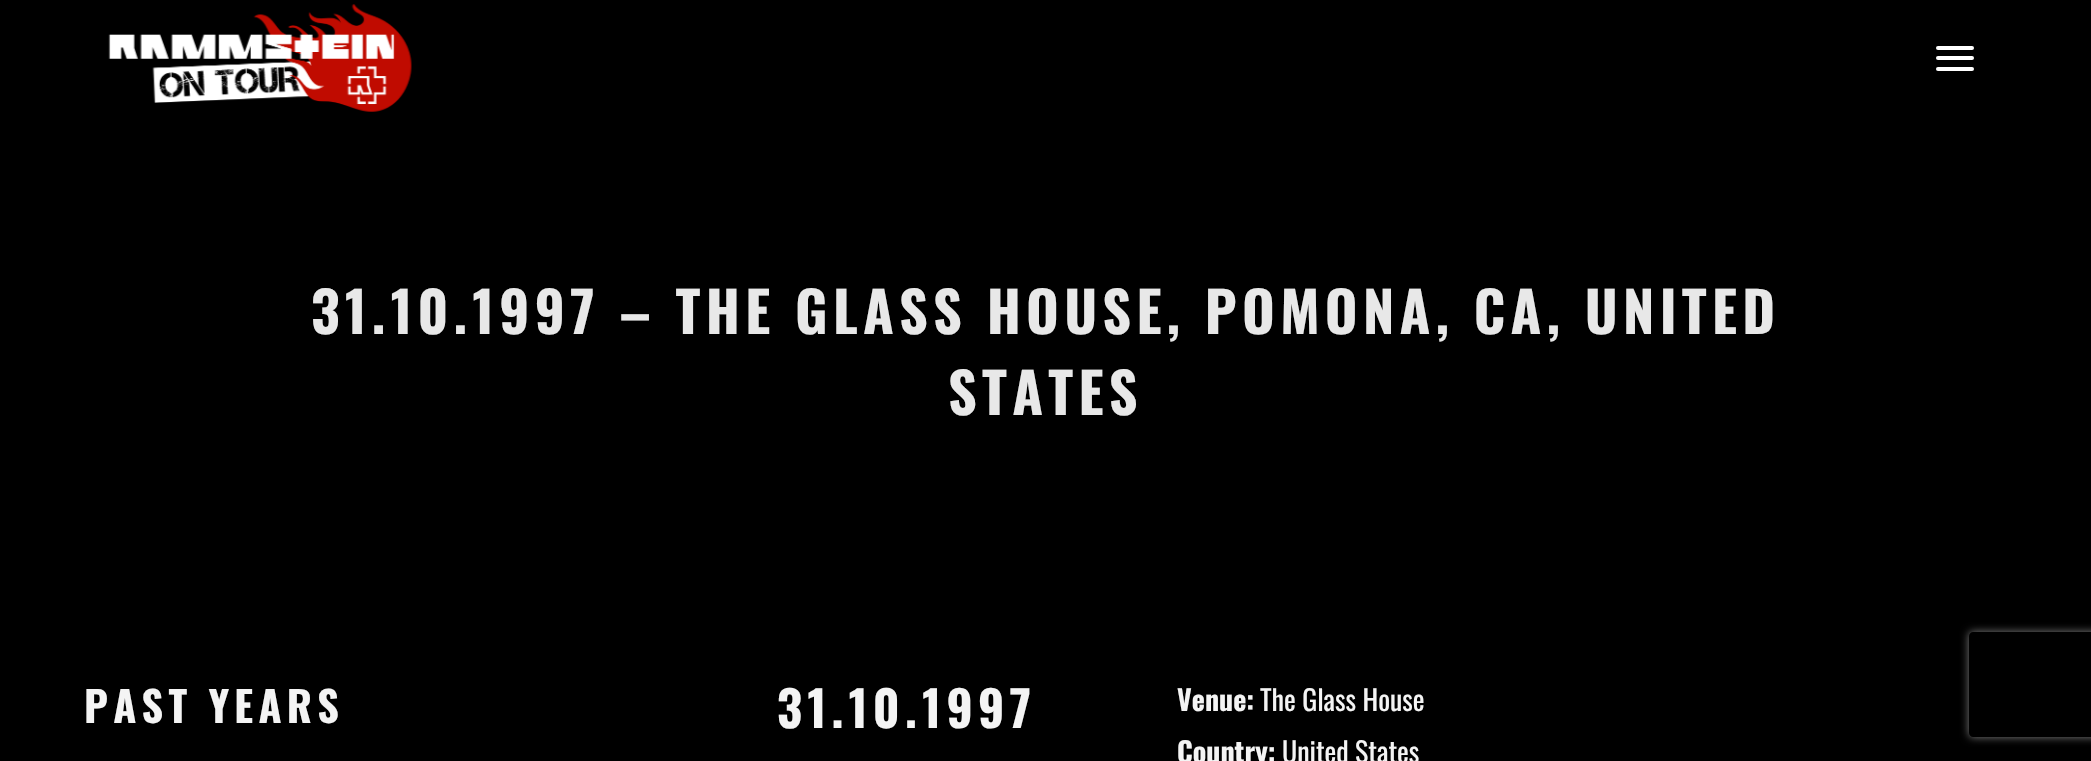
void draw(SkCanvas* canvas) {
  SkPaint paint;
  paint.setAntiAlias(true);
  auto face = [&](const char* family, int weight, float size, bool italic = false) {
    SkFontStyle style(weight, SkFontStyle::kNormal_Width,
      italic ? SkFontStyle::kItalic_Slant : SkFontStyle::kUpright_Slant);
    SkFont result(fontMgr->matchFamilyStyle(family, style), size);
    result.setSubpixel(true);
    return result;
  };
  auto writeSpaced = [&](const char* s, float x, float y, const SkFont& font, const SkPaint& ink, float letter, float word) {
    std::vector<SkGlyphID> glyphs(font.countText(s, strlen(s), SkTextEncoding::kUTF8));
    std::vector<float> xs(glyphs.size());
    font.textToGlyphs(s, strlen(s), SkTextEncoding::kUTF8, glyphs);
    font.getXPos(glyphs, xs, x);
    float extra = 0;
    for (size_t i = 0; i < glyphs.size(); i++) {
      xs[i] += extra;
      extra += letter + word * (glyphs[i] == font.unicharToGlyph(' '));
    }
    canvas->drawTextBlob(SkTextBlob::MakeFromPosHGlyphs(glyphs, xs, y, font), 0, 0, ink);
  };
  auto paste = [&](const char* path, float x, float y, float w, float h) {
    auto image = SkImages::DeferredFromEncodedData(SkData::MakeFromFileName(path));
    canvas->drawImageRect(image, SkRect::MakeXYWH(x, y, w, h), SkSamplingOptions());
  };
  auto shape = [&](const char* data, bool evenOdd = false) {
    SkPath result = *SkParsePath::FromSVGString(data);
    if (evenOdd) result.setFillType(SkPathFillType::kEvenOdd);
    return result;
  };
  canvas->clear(0xff000000);
  paste("img/1.png", 108, 4, 304, 108);
  paint.setColor(0xffffffff);
  canvas->drawRoundRect(SkRect::MakeXYWH(1936, 46, 38, 4), 2, 2, paint);
  canvas->drawRoundRect(SkRect::MakeXYWH(1936, 56, 38, 4), 2, 2, paint);
  canvas->drawRoundRect(SkRect::MakeXYWH(1936, 67, 38, 4), 2, 2, paint);
  canvas->save();
  canvas->clipPath(shape("M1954 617H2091V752H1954ZM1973 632H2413C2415 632 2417 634 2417 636V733C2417 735 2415 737 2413 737H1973C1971 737 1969 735 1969 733V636C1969 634 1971 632 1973 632Z", true), true);
  paint.setColor(0xff808080);
  paint.setMaskFilter(SkMaskFilter::MakeBlur(kNormal_SkBlurStyle, 4.5f));
  canvas->drawRoundRect(SkRect::MakeXYWH(1969, 632, 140, 105), 4, 4, paint);
  paint.setMaskFilter(nullptr);
  canvas->restore();
  auto f0 = face("Oswald", 700, 56);
  paint.setColor(0xffe8e8e8);
  writeSpaced("31.10.1997 – THE GLASS HOUSE, POMONA, CA, UNITED", 311, 334, f0, paint, 5.25f, 0);
  writeSpaced("STATES", 948, 415, f0, paint, 5.25f, 0);
  auto f1 = face("Oswald", 700, 42);
  paint.setColor(0xfff4f4f4);
  writeSpaced("PAST YEARS", 84, 723, f1, paint, 5.25f, 0);
  auto f2 = face("Oswald", 700, 49);
  writeSpaced("31.10.1997", 777, 728, f2, paint, 5.25f, 0);
  auto f3 = face("Oswald", 700, 28);
  canvas->drawString("Venue:", 1177, 711, f3, paint);
  auto f4 = face("Oswald", 400, 28);
  canvas->drawString("The Glass House", 1260, 711, f4, paint);
  canvas->drawString("Country:", 1177, 763, f3, paint);
  canvas->drawString("United States", 1282, 763, f4, paint);
}
